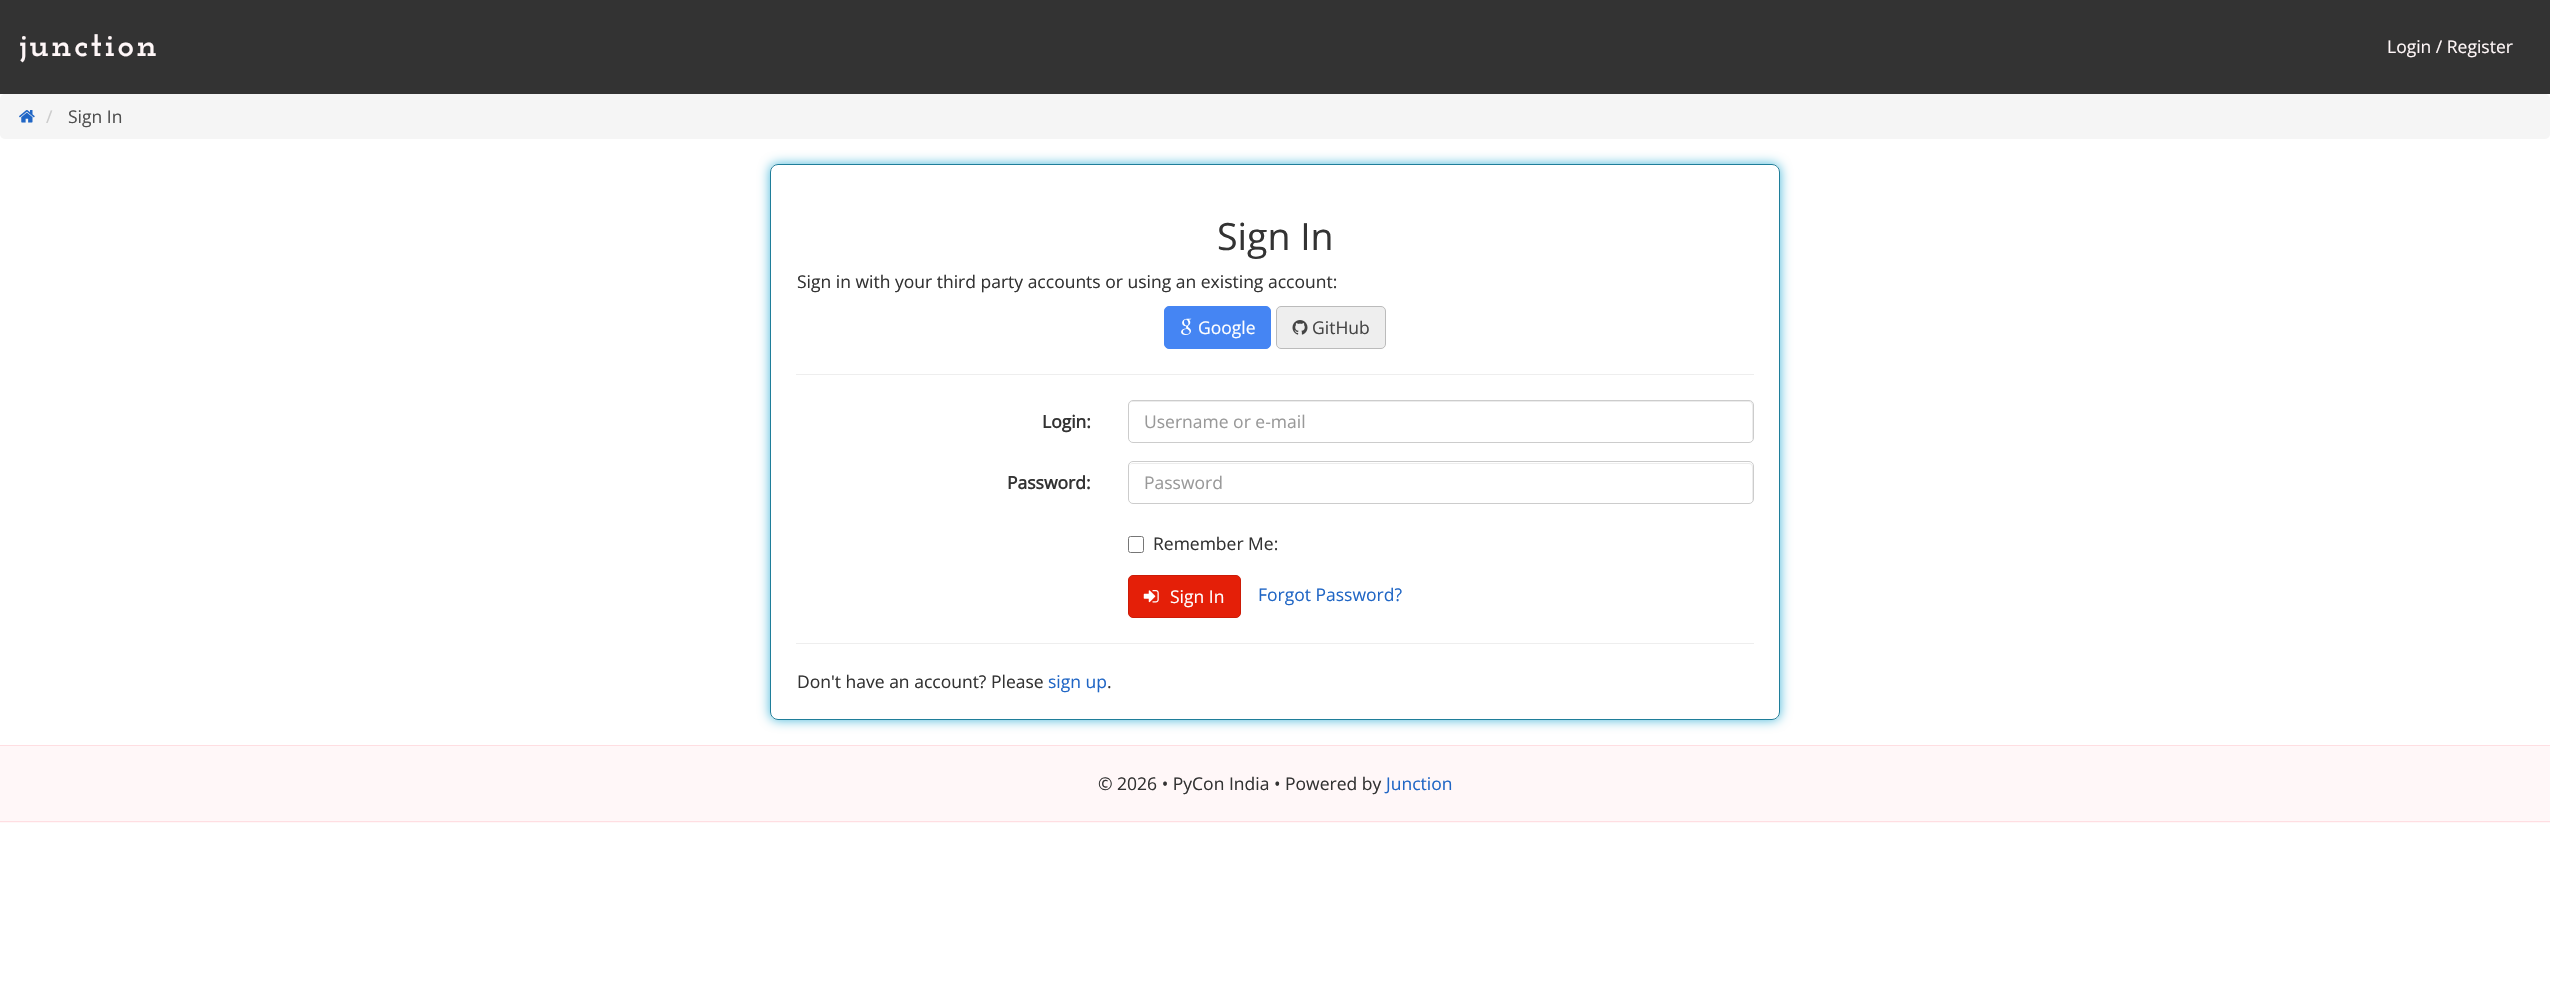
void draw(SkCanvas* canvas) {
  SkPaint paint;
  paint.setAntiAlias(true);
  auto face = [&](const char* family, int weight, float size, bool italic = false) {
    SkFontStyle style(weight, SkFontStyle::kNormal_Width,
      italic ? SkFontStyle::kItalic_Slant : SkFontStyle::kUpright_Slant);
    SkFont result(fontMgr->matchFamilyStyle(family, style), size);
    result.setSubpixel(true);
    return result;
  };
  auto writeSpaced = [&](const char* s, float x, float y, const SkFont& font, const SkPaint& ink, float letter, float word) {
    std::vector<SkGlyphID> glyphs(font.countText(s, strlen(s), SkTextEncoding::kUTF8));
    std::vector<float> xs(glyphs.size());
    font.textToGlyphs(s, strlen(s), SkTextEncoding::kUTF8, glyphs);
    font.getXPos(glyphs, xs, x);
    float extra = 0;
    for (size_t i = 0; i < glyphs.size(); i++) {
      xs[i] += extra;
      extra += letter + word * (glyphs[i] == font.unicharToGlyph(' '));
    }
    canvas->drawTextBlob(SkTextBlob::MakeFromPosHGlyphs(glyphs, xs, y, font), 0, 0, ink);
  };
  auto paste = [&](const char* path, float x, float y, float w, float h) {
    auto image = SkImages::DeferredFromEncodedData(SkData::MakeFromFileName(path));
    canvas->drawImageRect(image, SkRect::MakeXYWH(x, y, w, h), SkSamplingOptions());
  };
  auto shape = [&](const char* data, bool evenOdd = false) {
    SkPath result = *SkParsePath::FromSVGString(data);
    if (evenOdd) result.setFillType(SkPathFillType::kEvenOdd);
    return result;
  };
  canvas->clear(0xffffffff);
  paint.setColor(0xff333333);
  canvas->drawRect(SkRect::MakeXYWH(0, 0, 2550, 94), paint);
  paint.setColor(0xfff5f5f5);
  canvas->drawRoundRect(SkRect::MakeXYWH(0, 94, 2550, 45), 5, 5, paint);
  paste("img/1.png", 19, 110, 16, 13);
  canvas->save();
  canvas->clipPath(shape("M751 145H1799V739H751ZM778 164H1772C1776.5 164 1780 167.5 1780 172V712C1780 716.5 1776.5 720 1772 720H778C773.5 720 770 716.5 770 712V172C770 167.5 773.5 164 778 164Z", true), true);
  paint.setColor(0xff46b8da);
  paint.setMaskFilter(SkMaskFilter::MakeBlur(kNormal_SkBlurStyle, 6));
  canvas->drawRoundRect(SkRect::MakeXYWH(770, 164, 1010, 556), 8, 8, paint);
  paint.setMaskFilter(nullptr);
  canvas->restore();
  paint.setStroke(true);
  paint.setStrokeWidth(1);
  paint.setColor(0xff1f7e9a);
  canvas->drawRoundRect(SkRect::MakeXYWH(770.5f, 164.5f, 1009, 555), 7.5f, 7.5f, paint);
  paint.setStroke(false);
  paint.setColor(0xff4585f3);
  canvas->drawRoundRect(SkRect::MakeXYWH(1164.5f, 306.5f, 106, 42), 4.5f, 4.5f, paint);
  paint.setStroke(true);
  canvas->drawRoundRect(SkRect::MakeXYWH(1164.5f, 306.5f, 106, 42), 4.5f, 4.5f, paint);
  paste("img/2.png", 1181, 318, 11, 17);
  paint.setStroke(false);
  paint.setColor(0xffeeeeee);
  canvas->drawRoundRect(SkRect::MakeXYWH(1276.5f, 306.5f, 109, 42), 4.5f, 4.5f, paint);
  paint.setStroke(true);
  paint.setColor(0xffbbbbbb);
  canvas->drawRoundRect(SkRect::MakeXYWH(1276.5f, 306.5f, 109, 42), 4.5f, 4.5f, paint);
  paste("img/3.png", 1292, 320, 16, 15);
  paint.setStroke(false);
  paint.setColor(0xffeeeeee);
  canvas->drawRect(SkRect::MakeXYWH(796, 374, 958, 1), paint);
  paint.setColor(0xffececec);
  canvas->drawPath(shape("M1132 402H1749C1751 402 1752 404 1752 406V440C1753 439 1753 438 1753 437V405C1753 403 1751 401 1749 401H1133C1131 401 1129 403 1129 405V406C1129 404 1130 402 1132 402Z"), paint);
  paint.setStroke(true);
  paint.setColor(0xffcccccc);
  canvas->drawRoundRect(SkRect::MakeXYWH(1128.5f, 400.5f, 625, 42), 4.5f, 4.5f, paint);
  paint.setStroke(false);
  paint.setColor(0xffececec);
  canvas->drawPath(shape("M1132 464H1749C1751 464 1752 465 1752 468V502C1752 501 1753 500 1753 499V467C1753 465 1751 463 1749 463H1133C1131 463 1129 465 1129 467V468C1129 465 1130 464 1132 464Z"), paint);
  paint.setStroke(true);
  paint.setColor(0xffcccccc);
  canvas->drawRoundRect(SkRect::MakeXYWH(1128.5f, 461.5f, 625, 42), 4.5f, 4.5f, paint);
  paint.setColor(0xff767676);
  canvas->drawRoundRect(SkRect::MakeXYWH(1128.5f, 536.5f, 15, 16), 2, 2, paint);
  paint.setStroke(false);
  paint.setColor(0xffe41f08);
  canvas->drawRoundRect(SkRect::MakeXYWH(1128.5f, 575.5f, 112, 42), 4.5f, 4.5f, paint);
  paint.setStroke(true);
  paint.setColor(0xffcc1b07);
  canvas->drawRoundRect(SkRect::MakeXYWH(1128.5f, 575.5f, 112, 42), 4.5f, 4.5f, paint);
  paste("img/4.png", 1143, 590, 16, 13);
  paint.setStroke(false);
  {
    const struct { float x, y, w, h; SkColor color; } items[] = {
      {796, 643, 958, 1, 0xffeeeeee},
      {0, 746, 2550, 77, 0xfffff7f8},
      {0, 745, 2550, 1, 0xffffdee2},
      {0, 821, 2550, 1, 0xffffdee2},
    };
    for (auto [x, y, w, h, color] : items) {
      paint.setColor(color);
      canvas->drawRect(SkRect::MakeXYWH(x, y, w, h), paint);
    }
  }
  auto f0 = face("Josefin Slab", 700, 35);
  paint.setColor(0xfffff7f8);
  writeSpaced("junction", 19, 56, f0, paint, 2.5f, 0);
  auto f1 = face("Open Sans", 400, 17.5f);
  canvas->drawString("Login / Register", 2387, 53, f1, paint);
  paint.setColor(0xffcccccc);
  canvas->drawString("/", 46, 123, f1, paint);
  paint.setColor(0xff4f4f4f);
  canvas->drawString("Sign In", 68, 123, f1, paint);
  auto f2 = face("Open Sans", 400, 37.5f);
  paint.setColor(0xff333333);
  canvas->drawString("Sign In", 1217, 250, f2, paint);
  canvas->drawString("Sign in with your third party accounts or using an existing account:", 797, 288, f1, paint);
  paint.setColor(0xffffffff);
  canvas->drawString("Google", 1198, 334, f1, paint);
  paint.setColor(0xff454545);
  canvas->drawString("GitHub", 1312, 334, f1, paint);
  auto f3 = face("Open Sans", 700, 17.5f);
  paint.setColor(0xff333333);
  canvas->drawString("Login:", 1042, 428, f3, paint);
  paint.setColor(0xff999999);
  canvas->drawString("Username or e-mail", 1144, 428, f1, paint);
  paint.setColor(0xff333333);
  canvas->drawString("Password:", 1007, 489, f3, paint);
  paint.setColor(0xff999999);
  canvas->drawString("Password", 1144, 489, f1, paint);
  paint.setColor(0xff333333);
  canvas->drawString("Remember Me:", 1153, 550, f1, paint);
  paint.setColor(0xffffffff);
  canvas->drawString("Sign In", 1170, 603, f1, paint);
  paint.setColor(0xff2066c5);
  canvas->drawString("Forgot Password?", 1258, 601, f1, paint);
  paint.setColor(0xff333333);
  canvas->drawString("Don't have an account? Please", 797, 688, f1, paint);
  paint.setColor(0xff2066c5);
  canvas->drawString("sign up", 1048, 688, f1, paint);
  paint.setColor(0xff333333);
  canvas->drawString(".", 1107, 688, f1, paint);
  canvas->drawString("© 2026 • PyCon India • Powered by", 1098, 790, f1, paint);
  paint.setColor(0xff2066c5);
  canvas->drawString("Junction", 1386, 790, f1, paint);
}
